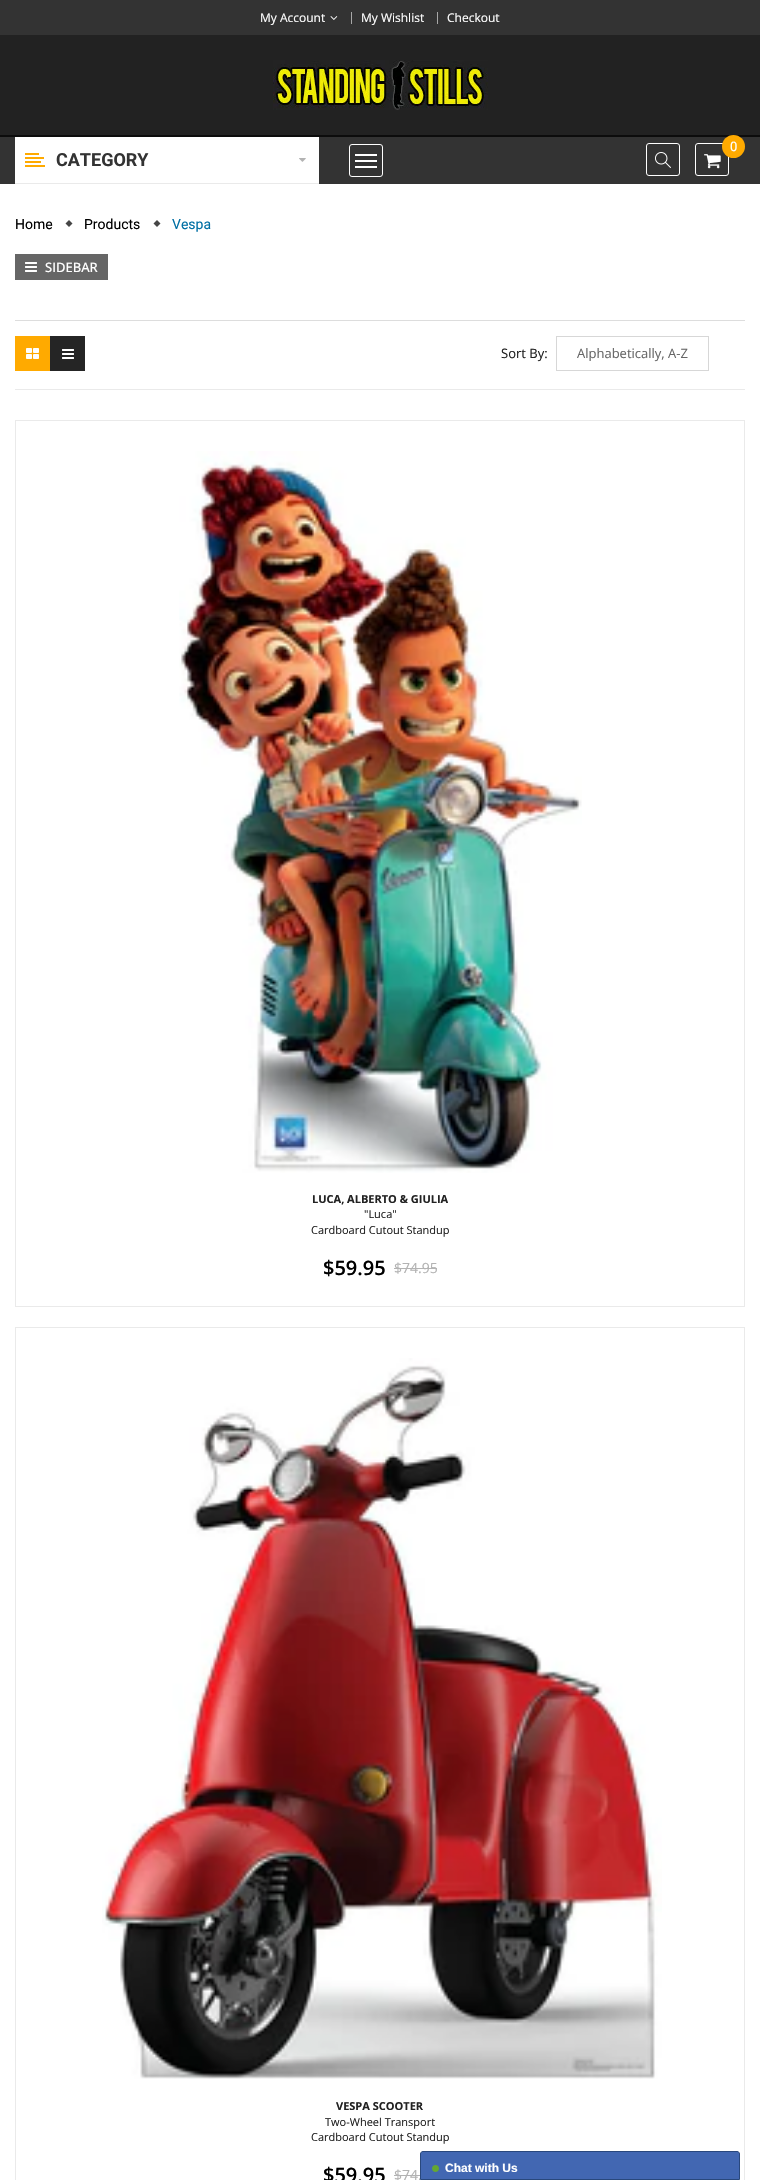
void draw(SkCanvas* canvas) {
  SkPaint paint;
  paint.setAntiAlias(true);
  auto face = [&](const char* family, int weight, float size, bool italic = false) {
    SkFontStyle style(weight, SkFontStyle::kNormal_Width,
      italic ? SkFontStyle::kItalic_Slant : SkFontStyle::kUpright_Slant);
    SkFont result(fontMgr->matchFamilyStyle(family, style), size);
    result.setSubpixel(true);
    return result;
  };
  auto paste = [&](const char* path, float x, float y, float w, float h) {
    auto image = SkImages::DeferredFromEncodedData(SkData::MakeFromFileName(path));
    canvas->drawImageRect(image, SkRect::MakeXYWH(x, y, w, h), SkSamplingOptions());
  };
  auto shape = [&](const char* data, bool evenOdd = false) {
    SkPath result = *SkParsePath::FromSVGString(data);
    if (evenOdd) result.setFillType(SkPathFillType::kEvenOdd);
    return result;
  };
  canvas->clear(0xffffffff);
  paint.setColor(0xff333333);
  canvas->drawRect(SkRect::MakeXYWH(0, 0, 760, 35), paint);
  paste("img/1.png", 330, 16, 8, 4);
  {
    const struct { float x, y, w, h; SkColor color; } items[] = {
      {351, 12, 1, 12, 0xffa8a8a8},
      {437, 12, 1, 12, 0xffa8a8a8},
      {0, 35, 760, 100, 0xff222222},
      {0, 135, 760, 2, 0xff0c0c0c},
    };
    for (auto [x, y, w, h, color] : items) {
      paint.setColor(color);
      canvas->drawRect(SkRect::MakeXYWH(x, y, w, h), paint);
    }
  }
  paste("img/2.png", 273, 60, 215, 50);
  paint.setColor(0xff333333);
  canvas->drawRect(SkRect::MakeXYWH(0, 137, 760, 47), paint);
  paint.setStroke(true);
  paint.setStrokeWidth(1);
  paint.setColor(0xffffffff);
  canvas->drawRoundRect(SkRect::MakeXYWH(646.5f, 143.5f, 33, 32), 2.5f, 2.5f, paint);
  paste("img/3.png", 655, 152, 16, 16);
  canvas->drawRoundRect(SkRect::MakeXYWH(695.5f, 143.5f, 33, 32), 2.5f, 2.5f, paint);
  paste("img/4.png", 704, 154, 17, 15);
  paint.setStroke(false);
  paint.setColor(0xffffaa00);
  canvas->drawCircle(733.5f, 146.5f, 11.5f, paint);
  paint.setColor(0xffeaeaea);
  canvas->drawRect(SkRect::MakeXYWH(15, 183, 304, 1), paint);
  paint.setColor(0xffffffff);
  canvas->drawRect(SkRect::MakeXYWH(15, 137, 304, 46), paint);
  paste("img/5.png", 25, 153, 20, 14);
  paste("img/6.png", 299, 158, 7, 4);
  paint.setStroke(true);
  canvas->drawRoundRect(SkRect::MakeXYWH(349.5f, 144.5f, 33, 32), 2.5f, 2.5f, paint);
  paint.setStroke(false);
  {
    const struct { float x, y, w, h; SkColor color; } items[] = {
      {355, 154, 22, 2, 0xffffffff},
      {355, 160, 22, 2, 0xffffffff},
      {355, 166, 22, 2, 0xffffffff},
    };
    for (auto [x, y, w, h, color] : items) {
      paint.setColor(color);
      canvas->drawRect(SkRect::MakeXYWH(x, y, w, h), paint);
    }
  }
  paint.setColor(0xff464646);
  canvas->drawPath(shape("M69 220L72.5 223.5L69 227L65.5 223.5Z"), paint);
  canvas->drawPath(shape("M157 220L160.5 223.5L157 227L153.5 223.5Z"), paint);
  paint.setColor(0xff666666);
  canvas->drawRect(SkRect::MakeXYWH(15, 254, 93, 26), paint);
  paste("img/7.png", 25, 262, 12, 10);
  {
    const struct { float x, y, w, h; SkColor color; } items[] = {
      {15, 320, 730, 1, 0xffdddddd},
      {15, 389, 730, 1, 0xffeaeaea},
      {15, 336, 35, 35, 0xffffaa00},
    };
    for (auto [x, y, w, h, color] : items) {
      paint.setColor(color);
      canvas->drawRect(SkRect::MakeXYWH(x, y, w, h), paint);
    }
  }
  paste("img/8.png", 26, 348, 13, 11);
  paint.setColor(0xff252525);
  canvas->drawRect(SkRect::MakeXYWH(50, 336, 35, 35), paint);
  paste("img/9.png", 62, 349, 12, 10);
  paint.setStroke(true);
  paint.setColor(0xffd7d7d7);
  canvas->drawRect(SkRect::MakeXYWH(556.5f, 336.5f, 152, 34), paint);
  paint.setColor(0xffeaeaea);
  canvas->drawRect(SkRect::MakeXYWH(15.5f, 420.5f, 729, 886), paint);
  paste("img/10.png", 179, 451, 403, 722);
  paint.setStroke(false);
  paint.setColor(0xffb3b3b3);
  canvas->drawRect(SkRect::MakeXYWH(394, 1268, 43, 1), paint);
  paint.setStroke(true);
  paint.setColor(0xffeaeaea);
  canvas->drawRect(SkRect::MakeXYWH(15.5f, 1327.5f, 729, 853), paint);
  paste("img/11.png", 102, 1358, 560, 721);
  paint.setStroke(false);
  paint.setColor(0xffb3b3b3);
  canvas->drawRect(SkRect::MakeXYWH(394, 2175, 26, 1), paint);
  auto f0 = face("Open Sans", 400, 12);
  paint.setColor(0xffffffff);
  {
    const struct { const char* s; float x, y; } items[] = {
      {"My Account", 260, 22},
      {"My Wishlist", 361, 22},
      {"Checkout", 447, 22},
    };
    for (auto [s, x, y] : items) {
      canvas->drawString(s, x, y, f0, paint);
    }
  }
  auto f1 = face("Roboto", 400, 13);
  canvas->drawString("0", 730, 151, f1, paint);
  auto f2 = face("Roboto", 700, 18);
  paint.setColor(0xff333333);
  canvas->drawString("CATEGORY", 56, 166, f2, paint);
  auto f3 = face("Roboto", 400, 14);
  paint.setColor(0xff000000);
  canvas->drawString("Home", 15, 229, f3, paint);
  canvas->drawString("Products", 84, 229, f3, paint);
  paint.setColor(0xff006fa4);
  canvas->drawString("Vespa", 172, 229, f3, paint);
  auto f4 = face("Open Sans", 500, 13);
  paint.setColor(0xffffffff);
  canvas->drawString("SIDEBAR", 45, 272, f4, paint);
  auto f5 = face("Open Sans", 400, 13);
  paint.setColor(0xff222222);
  canvas->drawString("Sort By:", 501, 358, f5, paint);
  paint.setColor(0xff666666);
  canvas->drawString("Alphabetically, A-Z", 577, 358, f5, paint);
  auto f6 = face("Open Sans", 700, 11);
  paint.setColor(0xff222222);
  canvas->drawString("LUCA, ALBERTO & GIULIA", 312, 1203, f6, paint);
  auto f7 = face("Open Sans", 400, 11);
  canvas->drawString("\"Luca\"", 364, 1218, f7, paint);
  canvas->drawString("Cardboard Cutout Standup", 311, 1234, f7, paint);
  auto f8 = face("Open Sans", 600, 20);
  paint.setColor(0xff000000);
  canvas->drawString("$59.95", 323, 1275, f8, paint);
  auto f9 = face("Open Sans", 400, 14);
  paint.setColor(0xffb3b3b3);
  canvas->drawString("$74.95", 394, 1273, f9, paint);
  paint.setColor(0xff222222);
  canvas->drawString("VESPA SCOOTER", 336, 2110, f6, paint);
  canvas->drawString("Two-Wheel Transport", 325, 2126, f7, paint);
  canvas->drawString("Cardboard Cutout Standup", 311, 2141, f7, paint);
  paint.setColor(0xff000000);
  canvas->drawString("$59.95", 323, 2182, f8, paint);
  paint.setColor(0xffb3b3b3);
  canvas->drawString("$74.", 394, 2180, f9, paint);
  paint.setColor(0xff4267b2);
  canvas->drawPath(shape("M423 2151.5H737C738.5 2151.5 739.5 2152.5 739.5 2154V2179.5H420.5V2154C420.5 2152.5 421.5 2151.5 423 2151.5Z"), paint);
  paint.setStroke(true);
  paint.setColor(0xff29487d);
  canvas->drawPath(shape("M423 2151.5H737C738.5 2151.5 739.5 2152.5 739.5 2154V2179.5H420.5V2154C420.5 2152.5 421.5 2151.5 423 2151.5Z"), paint);
  paste("img/12.png", 432, 2165, 7, 7);
  auto f10 = face("Liberation Sans", 700, 12);
  paint.setStroke(false);
  paint.setColor(0xffffffff);
  canvas->drawString("Chat with Us", 445, 2172, f10, paint);
}
